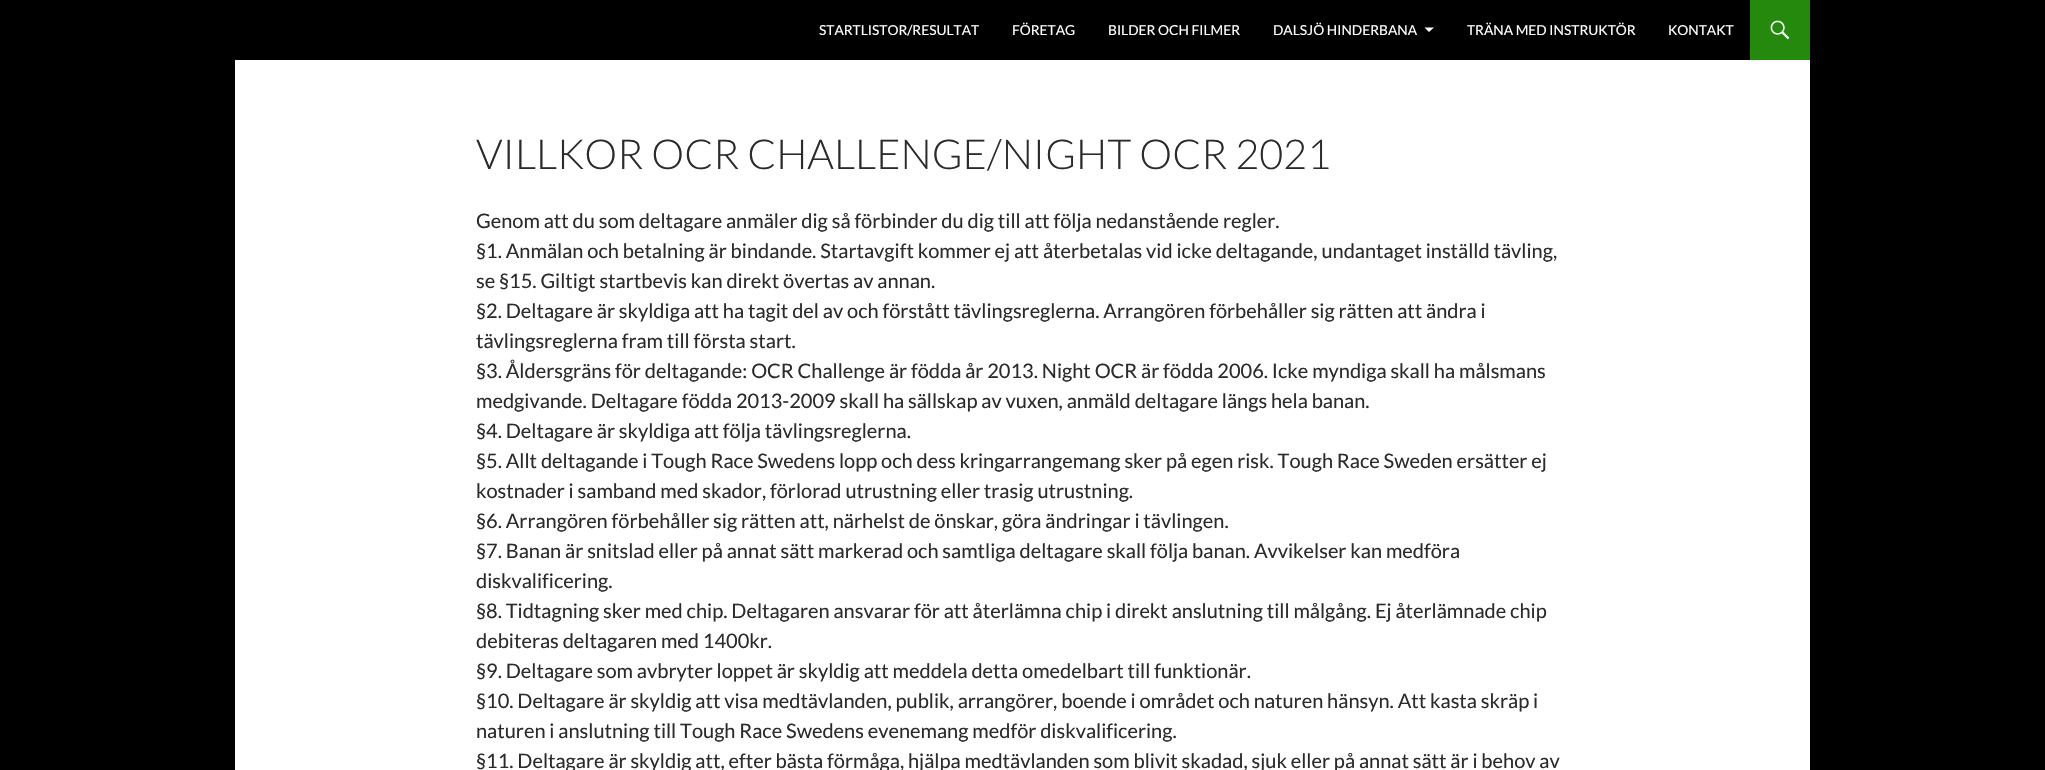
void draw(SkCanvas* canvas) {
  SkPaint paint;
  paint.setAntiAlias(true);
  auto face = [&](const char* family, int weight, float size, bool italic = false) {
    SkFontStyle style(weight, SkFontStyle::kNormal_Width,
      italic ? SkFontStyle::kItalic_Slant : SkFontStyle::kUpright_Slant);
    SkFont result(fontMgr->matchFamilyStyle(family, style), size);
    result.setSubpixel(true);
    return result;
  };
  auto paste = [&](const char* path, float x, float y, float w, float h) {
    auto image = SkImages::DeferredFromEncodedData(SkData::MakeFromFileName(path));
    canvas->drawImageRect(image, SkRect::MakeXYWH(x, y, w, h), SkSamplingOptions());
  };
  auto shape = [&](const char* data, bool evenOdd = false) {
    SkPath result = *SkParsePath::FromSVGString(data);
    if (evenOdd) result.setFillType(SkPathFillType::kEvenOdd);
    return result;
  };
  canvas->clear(0xff000000);
  paint.setColor(0xffffffff);
  canvas->drawRect(SkRect::MakeXYWH(235, 60, 1575, 710), paint);
  canvas->drawPath(shape("M1424.5 27.5L1429 32L1434 27.5Z"), paint);
  paint.setColor(0xff24890d);
  canvas->drawRect(SkRect::MakeXYWH(1750, 0, 60, 60), paint);
  paste("img/1.png", 1770, 20, 20, 20);
  auto f0 = face("Lato", 400, 13.75f);
  paint.setColor(0xffffffff);
  {
    const struct { const char* s; float x, y; } items[] = {
      {"STARTLISTOR/RESULTAT", 819, 35},
      {"FÖRETAG", 1012, 35},
      {"BILDER OCH FILMER", 1108, 35},
      {"DALSJÖ HINDERBANA", 1273, 35},
      {"TRÄNA MED INSTRUKTÖR", 1467, 35},
      {"KONTAKT", 1668, 35},
    };
    for (auto [s, x, y] : items) {
      canvas->drawString(s, x, y, f0, paint);
    }
  }
  auto f1 = face("Lato", 300, 41.25f);
  paint.setColor(0xff2b2b2b);
  canvas->drawString("VILLKOR OCR CHALLENGE/NIGHT OCR 2021", 476, 169, f1, paint);
  auto f2 = face("Lato", 400, 20);
  {
    const struct { const char* s; float x, y; } items[] = {
      {"Genom att du som deltagare anmäler dig så förbinder du dig till att följa nedanstående regler.", 476, 228},
      {"§1. Anmälan och betalning är bindande. Startavgift kommer ej att återbetalas vid icke deltagande, undantaget inställd tävling,", 476, 258},
      {"se §15. Giltigt startbevis kan direkt övertas av annan.", 476, 288},
      {"§2. Deltagare är skyldiga att ha tagit del av och förstått tävlingsreglerna. Arrangören förbehåller sig rätten att ändra i", 476, 318},
      {"tävlingsreglerna fram till första start.", 476, 348},
      {"§3. Åldersgräns för deltagande: OCR Challenge är födda år 2013. Night OCR är födda 2006. Icke myndiga skall ha målsmans", 476, 378},
      {"medgivande. Deltagare födda 2013-2009 skall ha sällskap av vuxen, anmäld deltagare längs hela banan.", 476, 408},
      {"§4. Deltagare är skyldiga att följa tävlingsreglerna.", 476, 438},
      {"§5. Allt deltagande i Tough Race Swedens lopp och dess kringarrangemang sker på egen risk. Tough Race Sweden ersätter ej", 476, 468},
      {"kostnader i samband med skador, förlorad utrustning eller trasig utrustning.", 476, 498},
      {"§6. Arrangören förbehåller sig rätten att, närhelst de önskar, göra ändringar i tävlingen.", 476, 528},
      {"§7. Banan är snitslad eller på annat sätt markerad och samtliga deltagare skall följa banan. Avvikelser kan medföra", 476, 558},
      {"diskvalificering.", 476, 588},
      {"§8. Tidtagning sker med chip. Deltagaren ansvarar för att återlämna chip i direkt anslutning till målgång. Ej återlämnade chip", 476, 618},
      {"debiteras deltagaren med 1400kr.", 476, 648},
      {"§9. Deltagare som avbryter loppet är skyldig att meddela detta omedelbart till funktionär.", 476, 678},
      {"§10. Deltagare är skyldig att visa medtävlanden, publik, arrangörer, boende i området och naturen hänsyn. Att kasta skräp i", 476, 708},
      {"naturen i anslutning till Tough Race Swedens evenemang medför diskvalificering.", 476, 738},
      {"§11. Deltagare är skyldig att, efter bästa förmåga, hjälpa medtävlanden som blivit skadad, sjuk eller på annat sätt är i behov av", 476, 768},
    };
    for (auto [s, x, y] : items) {
      canvas->drawString(s, x, y, f2, paint);
    }
  }
}
